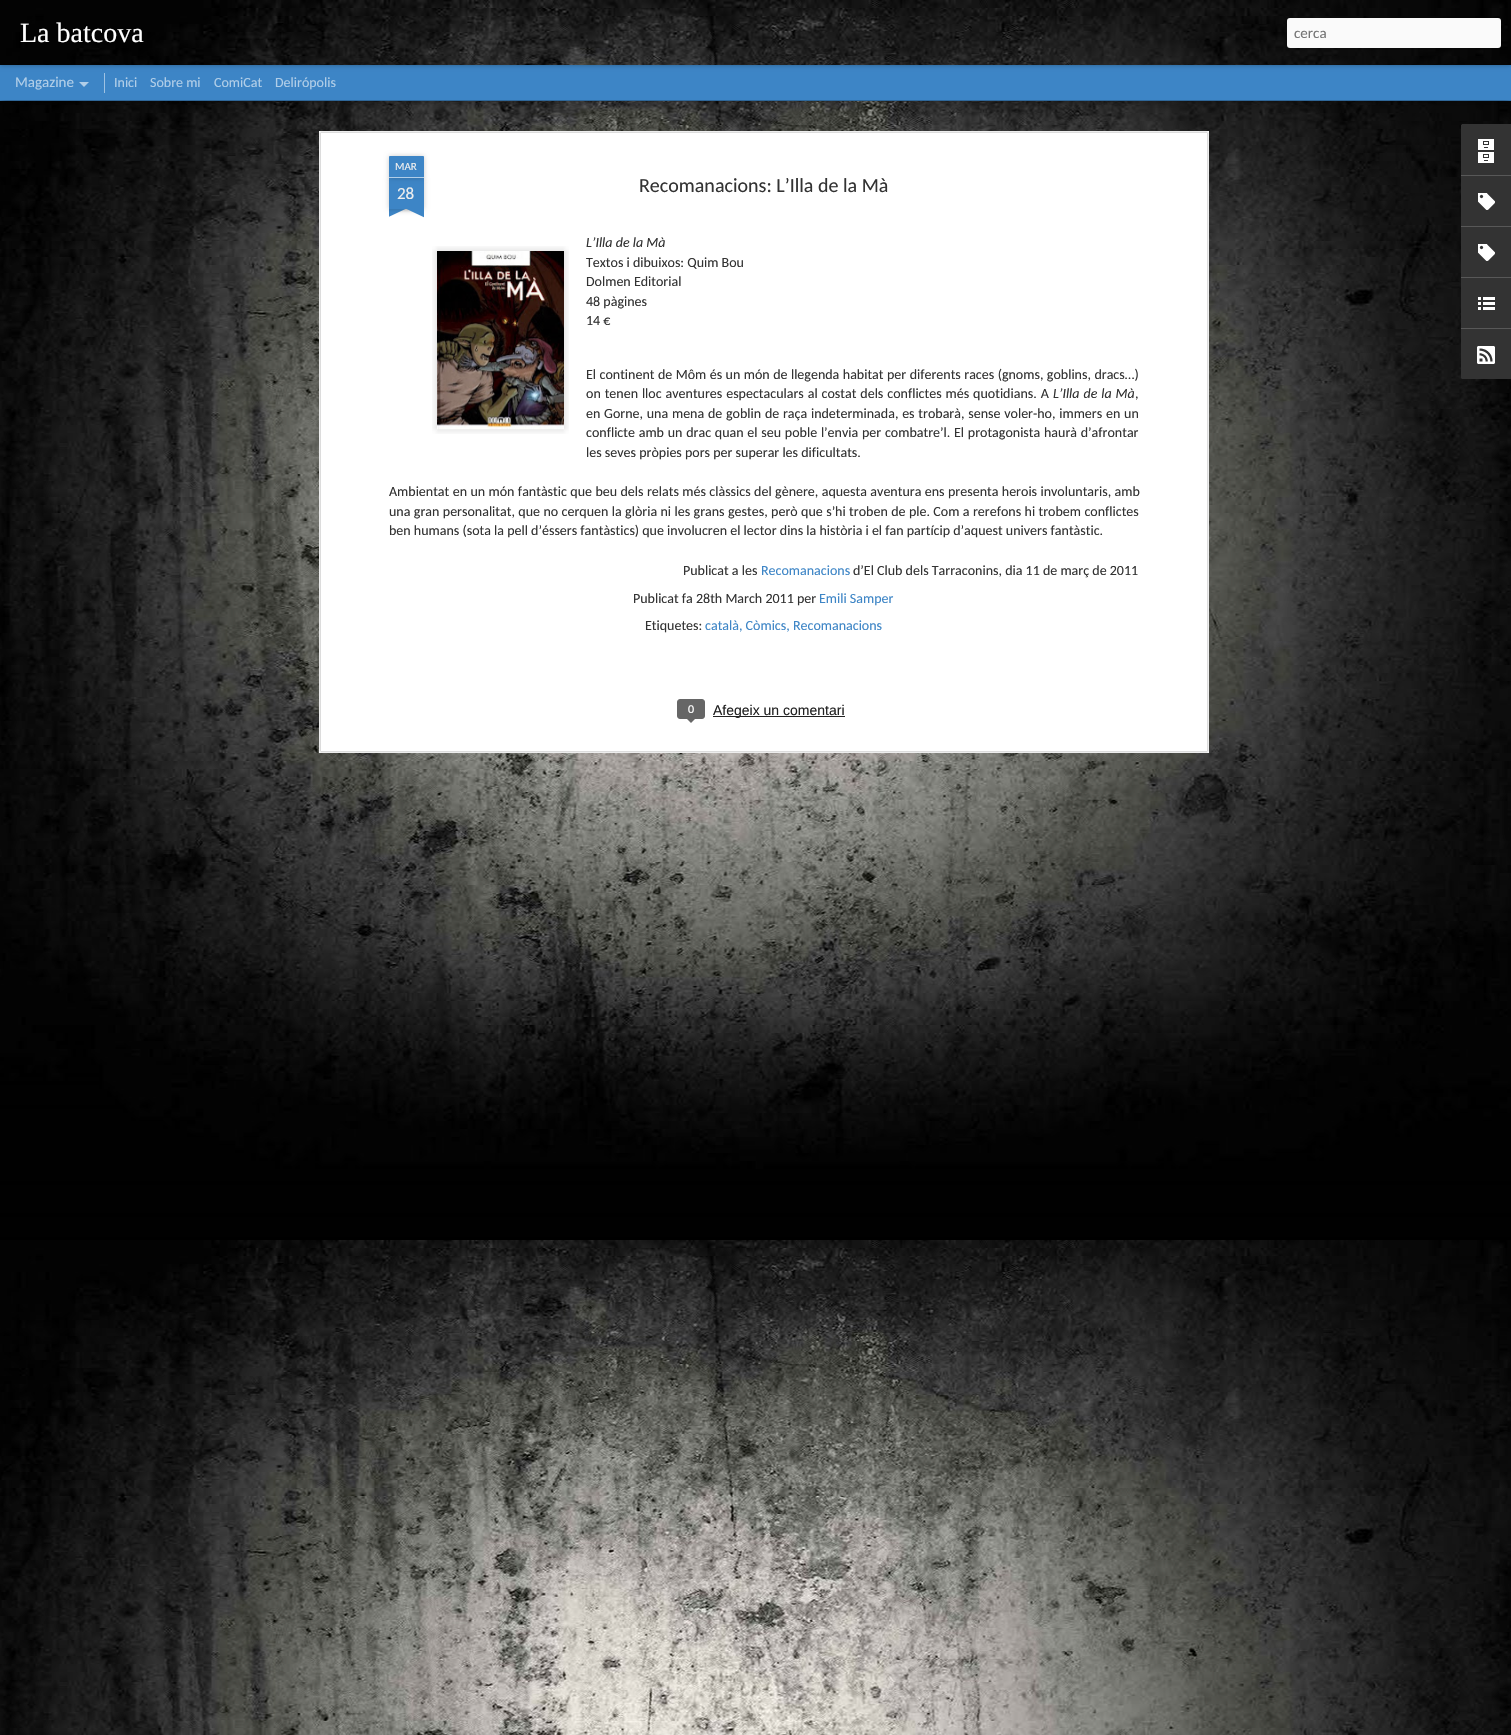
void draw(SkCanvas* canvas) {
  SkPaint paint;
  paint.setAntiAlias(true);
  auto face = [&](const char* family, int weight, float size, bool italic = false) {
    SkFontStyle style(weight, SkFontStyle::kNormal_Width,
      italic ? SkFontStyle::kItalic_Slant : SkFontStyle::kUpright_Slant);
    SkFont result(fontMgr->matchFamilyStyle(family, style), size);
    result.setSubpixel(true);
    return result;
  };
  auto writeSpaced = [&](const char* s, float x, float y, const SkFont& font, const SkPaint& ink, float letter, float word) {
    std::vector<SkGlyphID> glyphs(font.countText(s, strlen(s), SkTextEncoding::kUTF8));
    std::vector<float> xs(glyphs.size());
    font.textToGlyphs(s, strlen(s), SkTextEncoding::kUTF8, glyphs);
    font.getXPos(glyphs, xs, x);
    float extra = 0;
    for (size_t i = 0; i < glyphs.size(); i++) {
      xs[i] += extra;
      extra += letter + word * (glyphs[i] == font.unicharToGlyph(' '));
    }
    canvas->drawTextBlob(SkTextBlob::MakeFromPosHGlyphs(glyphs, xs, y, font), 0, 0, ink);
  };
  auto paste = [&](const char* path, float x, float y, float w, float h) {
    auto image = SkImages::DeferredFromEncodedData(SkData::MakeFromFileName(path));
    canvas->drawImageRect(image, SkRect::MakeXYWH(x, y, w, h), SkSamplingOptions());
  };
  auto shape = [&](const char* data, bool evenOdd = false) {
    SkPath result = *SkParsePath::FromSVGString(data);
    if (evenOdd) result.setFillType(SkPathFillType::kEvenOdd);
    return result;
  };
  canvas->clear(0xff3d85c6);
  paste("img/2.png", 0, 101, 1511, 1634);
  paint.setColor(0x80000000);
  paint.setMaskFilter(SkMaskFilter::MakeBlur(kNormal_SkBlurStyle, 4));
  canvas->drawRect(SkRect::MakeXYWH(0, 65, 1511, 35), paint);
  paint.setMaskFilter(nullptr);
  paint.setColor(0xff3d85c6);
  canvas->drawRect(SkRect::MakeXYWH(0, 65, 1511, 35), paint);
  paint.setColor(0xff9ec2e3);
  canvas->drawRect(SkRect::MakeXYWH(104, 73, 1, 20), paint);
  paint.setColor(0x4d000000);
  paint.setMaskFilter(SkMaskFilter::MakeBlur(kNormal_SkBlurStyle, 2.5f));
  canvas->drawRect(SkRect::MakeXYWH(0, 0, 1511, 65), paint);
  paint.setMaskFilter(nullptr);
  paste("img/1.png", 0, 0, 1511, 65);
  paint.setColor(0xfffafafa);
  canvas->drawRoundRect(SkRect::MakeXYWH(1287, 18, 214, 30), 3, 3, paint);
  paint.setColor(0xffb1cee8);
  canvas->drawPath(shape("M79 82H89L84 87Z"), paint);
  paint.setColor(0xffffffff);
  canvas->drawRect(SkRect::MakeXYWH(319, 131, 890, 622), paint);
  paste("img/3.png", 319, 131, 890, 622);
  paint.setColor(0x33000000);
  paint.setMaskFilter(SkMaskFilter::MakeBlur(kNormal_SkBlurStyle, 2.5f));
  canvas->drawRect(SkRect::MakeXYWH(389, 178, 35, 31), paint);
  paint.setMaskFilter(nullptr);
  paint.setColor(0xff3d85c6);
  canvas->drawRect(SkRect::MakeXYWH(389, 178, 35, 31), paint);
  paint.setColor(0x33000000);
  paint.setMaskFilter(SkMaskFilter::MakeBlur(kNormal_SkBlurStyle, 2.5f));
  canvas->drawRoundRect(SkRect::MakeXYWH(389, 156, 35, 22), 1, 1, paint);
  paint.setMaskFilter(nullptr);
  paint.setColor(0xff3d85c6);
  canvas->drawPath(shape("M390 156H423C423.5 156 424 156.5 424 157V178H389V157C389 156.5 389.5 156 390 156Z"), paint);
  paint.setColor(0xffb1cee8);
  canvas->drawRect(SkRect::MakeXYWH(389, 177, 35, 1), paint);
  canvas->save();
  canvas->clipRect(SkRect::MakeXYWH(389, 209, 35, 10));
  paint.setColor(0x33000000);
  paint.setMaskFilter(SkMaskFilter::MakeBlur(kNormal_SkBlurStyle, 2.5f));
  canvas->drawRect(SkRect::MakeXYWH(380, 199, 50, 10), paint);
  paint.setMaskFilter(nullptr);
  canvas->restore();
  canvas->save();
  canvas->clipRect(SkRect::MakeXYWH(389, 209, 35, 10));
  paint.setColor(0xff3d85c6);
  canvas->drawPath(shape("M380 210L425 189L429 198L384 219Z"), paint);
  canvas->restore();
  canvas->save();
  canvas->clipRect(SkRect::MakeXYWH(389, 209, 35, 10));
  paint.setColor(0x33000000);
  paint.setMaskFilter(SkMaskFilter::MakeBlur(kNormal_SkBlurStyle, 2.5f));
  canvas->drawRect(SkRect::MakeXYWH(383, 199, 50, 10), paint);
  paint.setMaskFilter(nullptr);
  canvas->restore();
  canvas->save();
  canvas->clipRect(SkRect::MakeXYWH(389, 209, 35, 10));
  paint.setColor(0xff3d85c6);
  canvas->drawPath(shape("M387 189L432 210L428 219L383 198Z"), paint);
  canvas->restore();
  paste("img/4.png", 432, 246, 137, 188);
  paste("img/5.png", 437, 251, 127, 179);
  paint.setColor(0xff666666);
  canvas->drawRoundRect(SkRect::MakeXYWH(677.5f, 699.5f, 27, 19), 2.5f, 2.5f, paint);
  paint.setStroke(true);
  paint.setStrokeWidth(1);
  canvas->drawRoundRect(SkRect::MakeXYWH(677.5f, 699.5f, 27, 19), 2.5f, 2.5f, paint);
  paint.setStroke(false);
  canvas->drawPath(shape("M686 718H696L691 723Z"), paint);
  paint.setColor(0xff222222);
  canvas->drawRect(SkRect::MakeXYWH(713, 716, 132, 1), paint);
  paint.setColor(0xff333333);
  canvas->drawPath(shape("M1463 124H1511V379H1463C1462 379 1461 378 1461 377V126C1461 125 1462 124 1463 124Z"), paint);
  canvas->drawPath(shape("M1463 124H1511V175H1461V126C1461 125 1462 124 1463 124Z"), paint);
  paste("img/6.png", 1478, 139, 16, 24);
  paint.setColor(0xff585858);
  canvas->drawRect(SkRect::MakeXYWH(1461, 175, 50, 1), paint);
  paste("img/7.png", 1478, 193, 17, 17);
  canvas->drawRect(SkRect::MakeXYWH(1461, 226, 50, 1), paint);
  paste("img/7.png", 1478, 244, 17, 17);
  canvas->drawRect(SkRect::MakeXYWH(1461, 277, 50, 1), paint);
  paste("img/8.png", 1478, 297, 17, 13);
  paint.setColor(0xff333333);
  canvas->drawPath(shape("M1461 328H1511V379H1463C1462 379 1461 378 1461 377Z"), paint);
  paint.setColor(0xff585858);
  canvas->drawRect(SkRect::MakeXYWH(1461, 328, 50, 1), paint);
  paste("img/9.png", 1477, 346, 18, 18);
  auto f0 = face("Liberation Serif", 400, 28);
  paint.setColor(0xffffffff);
  canvas->drawString("La batcova", 20, 42, f0, paint);
  auto f1 = face("Carlito", 400, 15);
  paint.setColor(0xff757575);
  canvas->drawString("cerca", 1294, 38, f1, paint);
  paint.setColor(0xffb1cee8);
  canvas->drawString("Magazine", 15, 87, f1, paint);
  auto f2 = face("Carlito", 400, 14);
  {
    const struct { const char* s; float x, y; } items[] = {
      {"Inici", 114, 87},
      {"Sobre mi", 150, 87},
      {"ComiCat", 214, 87},
      {"Delirópolis", 275, 87},
    };
    for (auto [s, x, y] : items) {
      canvas->drawString(s, x, y, f2, paint);
    }
  }
  auto f3 = face("Carlito", 400, 11);
  paint.setColor(0xffeeeeee);
  canvas->drawString("MAR", 395, 170, f3, paint);
  auto f4 = face("Carlito", 400, 17);
  canvas->drawString("28", 397, 199, f4, paint);
  auto f5 = face("Carlito", 400, 20);
  paint.setColor(0xff333333);
  canvas->drawString("Recomanacions: L’Illa de la Mà", 639, 192, f5, paint);
  auto f6 = face("Carlito", 400, 14, true);
  canvas->drawString("L’Illa de la Mà", 586, 247, f6, paint);
  {
    const struct { const char* s; float x, y; } items[] = {
      {"Textos i dibuixos: Quim Bou", 586, 267},
      {"Dolmen Editorial", 586, 286},
      {"48 pàgines", 586, 306},
      {"14 €", 586, 325},
    };
    for (auto [s, x, y] : items) {
      canvas->drawString(s, x, y, f2, paint);
    }
  }
  writeSpaced("El continent de Môm és un món de llegenda habitat per diferents races (gnoms, goblins, dracs…)", 586, 379, f2, paint, 0, 0.3f);
  writeSpaced("on tenen lloc aventures espectaculars al costat dels conflictes més quotidians. A", 586, 398, f2, paint, 0, 0.75f);
  writeSpaced("L’Illa de la Mà", 1053, 398, f6, paint, 0, 0.75f);
  canvas->drawString(",", 1135, 398, f2, paint);
  writeSpaced("en Gorne, una mena de goblin de raça indeterminada, es trobarà, sense voler-ho, immers en un", 586, 418, f2, paint, 0, 0.6f);
  writeSpaced("conflicte amb un drac quan el seu poble l’envia per combatre’l. El protagonista haurà d’afrontar", 586, 437, f2, paint, 0, 0.6f);
  canvas->drawString("les seves pròpies pors per superar les dificultats.", 586, 457, f2, paint);
  writeSpaced("Ambientat en un món fantàstic que beu dels relats més clàssics del gènere, aquesta aventura ens presenta herois involuntaris, amb", 389, 496, f2, paint, 0, 0.25f);
  writeSpaced("una gran personalitat, que no cerquen la glòria ni les grans gestes, però que s’hi troben de ple. Com a rerefons hi trobem conflictes", 389, 516, f2, paint, 0, 0.25f);
  canvas->drawString("ben humans (sota la pell d’éssers fantàstics) que involucren el lector dins la història i el fan partícip d’aquest univers fantàstic.", 389, 535, f2, paint);
  canvas->drawString("Publicat a les", 683, 575, f2, paint);
  paint.setColor(0xff3d85c6);
  canvas->drawString("Recomanacions", 761, 575, f2, paint);
  paint.setColor(0xff333333);
  canvas->drawString("d’El Club dels Tarraconins, dia 11 de març de 2011", 853, 575, f2, paint);
  canvas->drawString("Publicat fa 28th March 2011 per", 633, 603, f2, paint);
  paint.setColor(0xff3d85c6);
  canvas->drawString("Emili Samper", 819, 603, f2, paint);
  paint.setColor(0xff333333);
  canvas->drawString("Etiquetes:", 645, 630, f2, paint);
  paint.setColor(0xff3d85c6);
  canvas->drawString("català, Còmics, Recomanacions", 705, 630, f2, paint);
  auto f7 = face("Carlito", 400, 12);
  paint.setColor(0xffffffff);
  canvas->drawString("0", 688, 713, f7, paint);
  auto f8 = face("Liberation Sans", 400, 14);
  paint.setColor(0xff222222);
  canvas->drawString("Afegeix un comentari", 713, 715, f8, paint);
}
